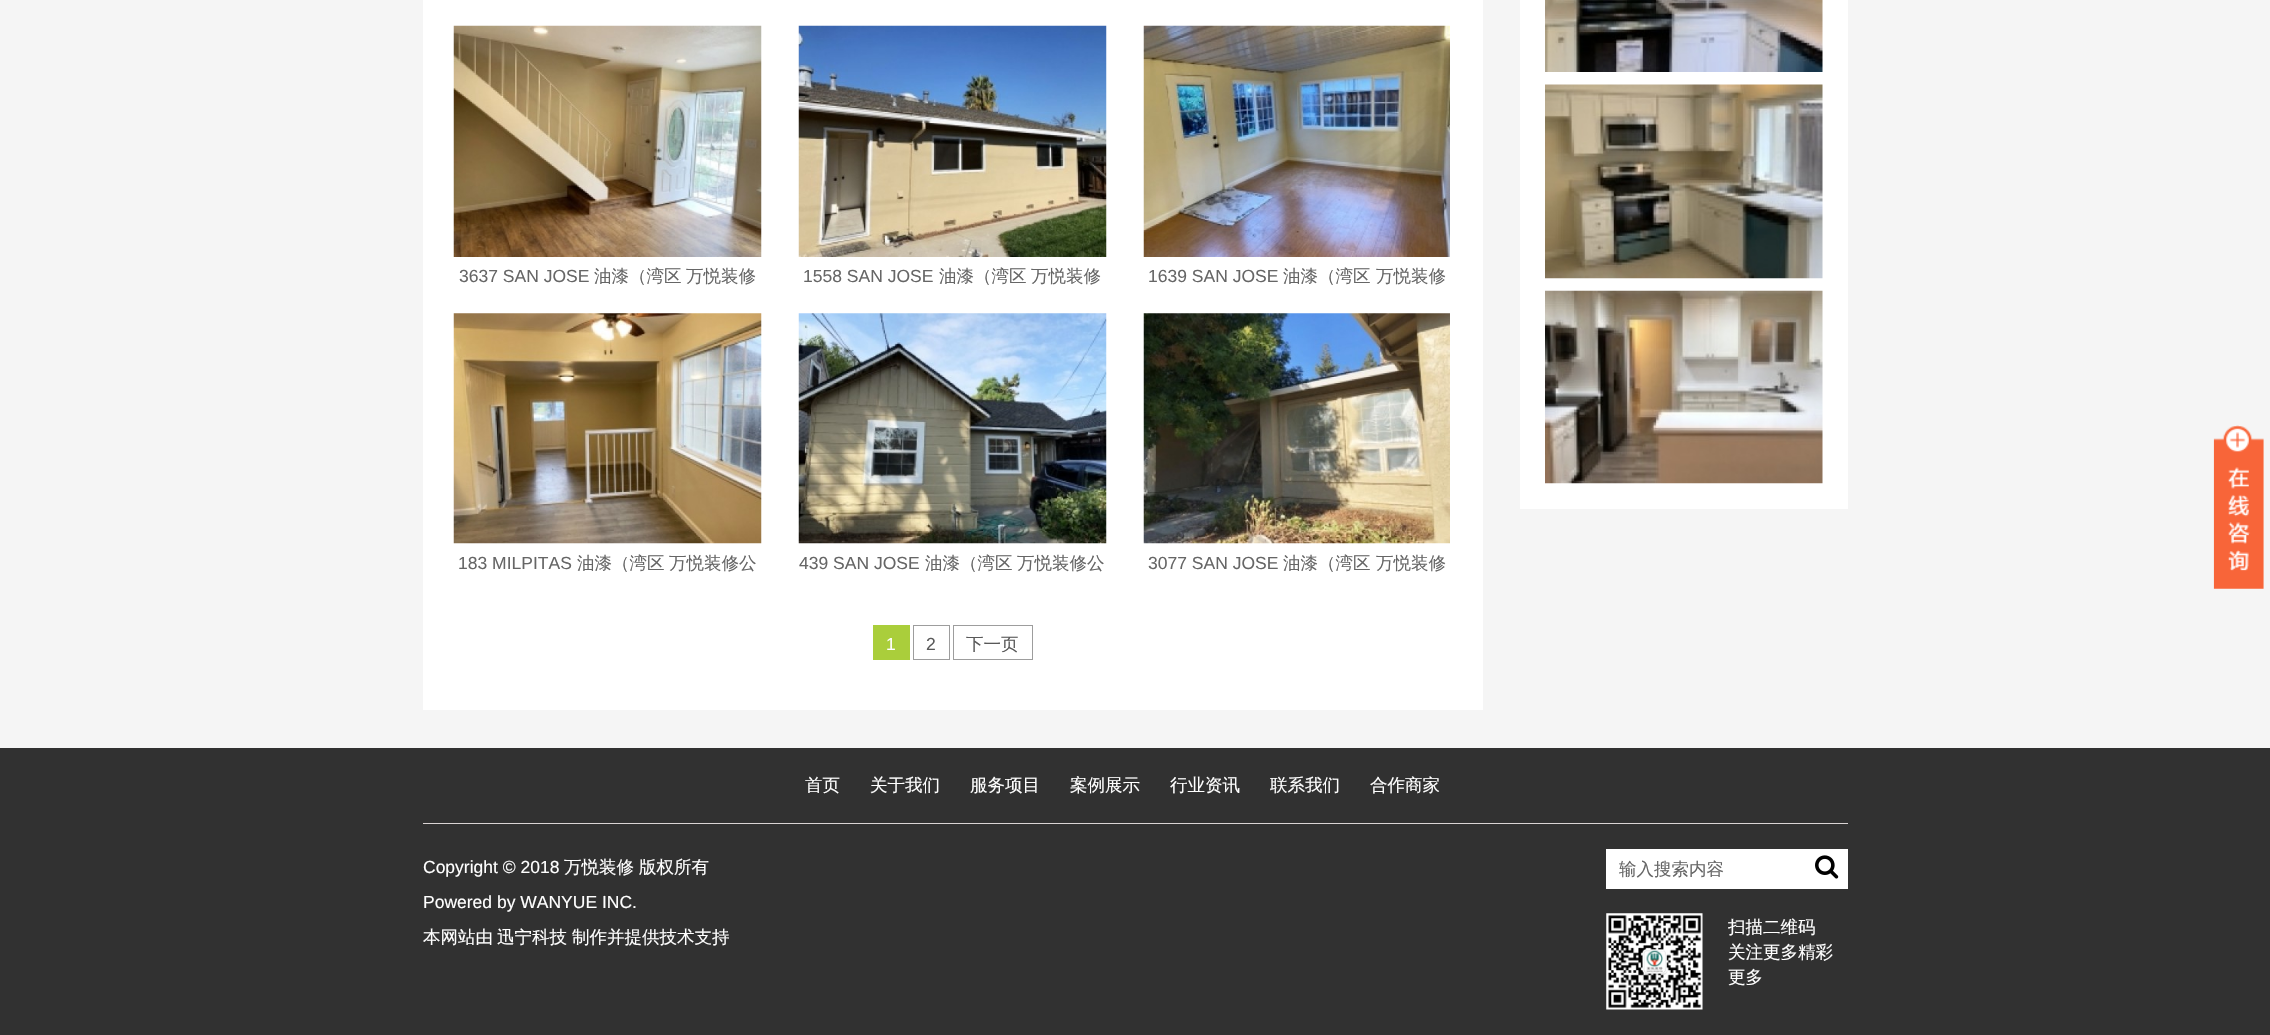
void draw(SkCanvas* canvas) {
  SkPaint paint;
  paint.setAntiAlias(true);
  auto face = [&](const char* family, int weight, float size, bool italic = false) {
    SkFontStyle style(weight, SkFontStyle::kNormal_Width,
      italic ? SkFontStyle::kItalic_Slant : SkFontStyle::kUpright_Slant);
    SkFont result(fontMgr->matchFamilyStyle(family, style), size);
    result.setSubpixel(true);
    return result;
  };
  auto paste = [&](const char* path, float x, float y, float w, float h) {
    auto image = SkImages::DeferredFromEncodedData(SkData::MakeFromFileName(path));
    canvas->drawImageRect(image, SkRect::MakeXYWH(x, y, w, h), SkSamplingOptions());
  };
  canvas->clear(0xfff5f5f5);
  paint.setColor(0xffffffff);
  canvas->drawRect(SkRect::MakeXYWH(423, 0, 1060, 710), paint);
  paste("img/1.png", 453, 25, 309, 232);
  paste("img/2.png", 798, 25, 309, 232);
  paste("img/3.png", 1143, 25, 307, 232);
  paste("img/4.png", 453, 313, 309, 231);
  paste("img/5.png", 798, 313, 309, 231);
  paste("img/6.png", 1143, 313, 307, 231);
  paint.setColor(0xffaace3b);
  canvas->drawRect(SkRect::MakeXYWH(873, 625, 37, 35), paint);
  paint.setStroke(true);
  paint.setStrokeWidth(1);
  paint.setColor(0xff9d9d9d);
  canvas->drawRect(SkRect::MakeXYWH(913.5f, 625.5f, 36, 34), paint);
  canvas->drawRect(SkRect::MakeXYWH(953.5f, 625.5f, 79, 34), paint);
  paint.setStroke(false);
  paint.setColor(0xffffffff);
  canvas->drawRect(SkRect::MakeXYWH(1520, 0, 328, 509), paint);
  paste("img/7.png", 1545, 0, 278, 72);
  paste("img/8.png", 1545, 84, 278, 195);
  paste("img/9.png", 1545, 290, 278, 194);
  paste("img/10.png", 2213, 425, 51, 164);
  {
    const struct { float x, y, w, h; SkColor color; } items[] = {
      {0, 748, 2270, 287, 0xff313131},
      {423, 823, 1425, 1, 0xffdad4d4},
      {1606, 849, 242, 40, 0xffffffff},
    };
    for (auto [x, y, w, h, color] : items) {
      paint.setColor(color);
      canvas->drawRect(SkRect::MakeXYWH(x, y, w, h), paint);
    }
  }
  paste("img/11.png", 1815, 855, 24, 24);
  paste("img/12.png", 1606, 913, 97, 97);
  auto f0 = face("Liberation Sans", 400, 17.5f);
  paint.setColor(0xff666666);
  canvas->drawString("3637 SAN JOSE", 459, 282, f0, paint);
  auto f1 = face("WenQuanYi Zen Hei", 500, 17.5f);
  canvas->drawString("油漆（湾区", 594, 282, f1, paint);
  canvas->drawString("万悦装修", 686, 282, f1, paint);
  canvas->drawString("1558 SAN JOSE", 803, 282, f0, paint);
  canvas->drawString("油漆（湾区", 939, 282, f1, paint);
  canvas->drawString("万悦装修", 1031, 282, f1, paint);
  canvas->drawString("1639 SAN JOSE", 1148, 282, f0, paint);
  canvas->drawString("油漆（湾区", 1283, 282, f1, paint);
  canvas->drawString("万悦装修", 1376, 282, f1, paint);
  canvas->drawString("183 MILPITAS", 458, 569, f0, paint);
  canvas->drawString("油漆（湾区", 577, 569, f1, paint);
  canvas->drawString("万悦装修公", 669, 569, f1, paint);
  canvas->drawString("439 SAN JOSE", 799, 569, f0, paint);
  canvas->drawString("油漆（湾区", 925, 569, f1, paint);
  canvas->drawString("万悦装修公", 1017, 569, f1, paint);
  canvas->drawString("3077 SAN JOSE", 1148, 569, f0, paint);
  canvas->drawString("油漆（湾区", 1283, 569, f1, paint);
  canvas->drawString("万悦装修", 1376, 569, f1, paint);
  paint.setColor(0xffffffff);
  canvas->drawString("1", 886, 650, f0, paint);
  paint.setColor(0xff595959);
  canvas->drawString("2", 926, 650, f0, paint);
  canvas->drawString("下一页", 966, 650, f1, paint);
  paint.setColor(0xffffffff);
  {
    const struct { const char* s; float x, y; } items[] = {
      {"首页", 805, 791},
      {"关于我们", 870, 791},
      {"服务项目", 970, 791},
      {"案例展示", 1070, 791},
      {"行业资讯", 1170, 791},
      {"联系我们", 1270, 791},
      {"合作商家", 1370, 791},
    };
    for (auto [s, x, y] : items) {
      canvas->drawString(s, x, y, f1, paint);
    }
  }
  canvas->drawString("Copyright © 2018", 423, 873, f0, paint);
  canvas->drawString("万悦装修", 564, 873, f1, paint);
  canvas->drawString("版权所有", 639, 873, f1, paint);
  canvas->drawString("Powered by WANYUE INC.", 423, 908, f0, paint);
  {
    const struct { const char* s; float x, y; } items[] = {
      {"本网站由", 423, 943},
      {"迅宁科技", 497, 943},
      {"制作并提供技术支持", 572, 943},
    };
    for (auto [s, x, y] : items) {
      canvas->drawString(s, x, y, f1, paint);
    }
  }
  paint.setColor(0xff666666);
  canvas->drawString("输入搜索内容", 1619, 875, f1, paint);
  paint.setColor(0xffffffff);
  {
    const struct { const char* s; float x, y; } items[] = {
      {"扫描二维码", 1728, 933},
      {"关注更多精彩", 1728, 958},
      {"更多", 1728, 983},
    };
    for (auto [s, x, y] : items) {
      canvas->drawString(s, x, y, f1, paint);
    }
  }
}
